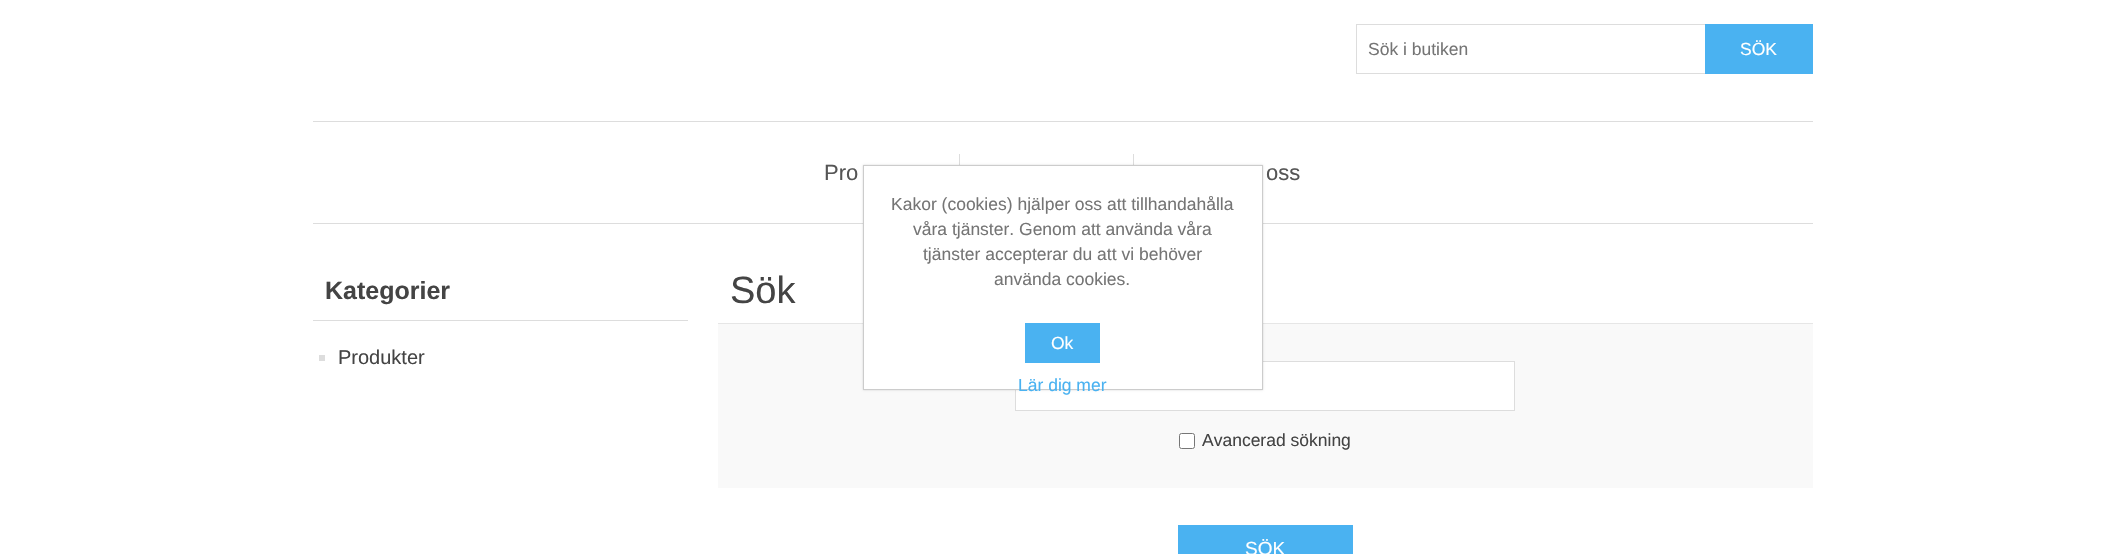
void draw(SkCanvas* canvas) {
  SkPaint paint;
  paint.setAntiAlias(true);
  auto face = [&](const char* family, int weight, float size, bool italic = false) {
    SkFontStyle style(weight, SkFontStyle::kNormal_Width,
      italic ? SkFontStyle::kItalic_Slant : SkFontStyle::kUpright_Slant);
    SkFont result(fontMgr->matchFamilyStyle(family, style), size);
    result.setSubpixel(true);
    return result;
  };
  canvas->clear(0xffffffff);
  paint.setStroke(true);
  paint.setStrokeWidth(1);
  paint.setColor(0xffdddddd);
  canvas->drawRect(SkRect::MakeXYWH(1356.5f, 24.5f, 349, 49), paint);
  paint.setStroke(false);
  {
    const struct { float x, y, w, h; SkColor color; } items[] = {
      {1705, 24, 108, 50, 0xff4ab2f1},
      {313, 121, 1500, 1, 0xffdddddd},
      {313, 223, 1500, 1, 0xffdddddd},
      {959, 154, 1, 11, 0xffdddddd},
      {1133, 154, 1, 11, 0xffdddddd},
      {313, 320, 375, 1, 0xffdddddd},
      {319, 355, 6, 6, 0xffdddddd},
      {718, 324, 1095, 164, 0xfff9f9f9},
      {718, 323, 1095, 1, 0xffe6e6e6},
    };
    for (auto [x, y, w, h, color] : items) {
      paint.setColor(color);
      canvas->drawRect(SkRect::MakeXYWH(x, y, w, h), paint);
    }
  }
  paint.setColor(0xffffffff);
  canvas->drawRect(SkRect::MakeXYWH(1015.5f, 361.5f, 499, 49), paint);
  paint.setStroke(true);
  paint.setColor(0xffdddddd);
  canvas->drawRect(SkRect::MakeXYWH(1015.5f, 361.5f, 499, 49), paint);
  paint.setStroke(false);
  paint.setColor(0xffffffff);
  canvas->drawRoundRect(SkRect::MakeXYWH(1179.5f, 433.5f, 15, 15), 2, 2, paint);
  paint.setStroke(true);
  paint.setColor(0xff767676);
  canvas->drawRoundRect(SkRect::MakeXYWH(1179.5f, 433.5f, 15, 15), 2, 2, paint);
  paint.setStroke(false);
  paint.setColor(0xff4ab2f1);
  canvas->drawRect(SkRect::MakeXYWH(1178, 525, 175, 29), paint);
  paint.setColor(0x26000000);
  paint.setMaskFilter(SkMaskFilter::MakeBlur(kNormal_SkBlurStyle, 1));
  canvas->drawRect(SkRect::MakeXYWH(863, 165, 400, 225), paint);
  paint.setMaskFilter(nullptr);
  paint.setColor(0xffffffff);
  canvas->drawRect(SkRect::MakeXYWH(863.5f, 165.5f, 399, 224), paint);
  paint.setStroke(true);
  paint.setColor(0xffcccccc);
  canvas->drawRect(SkRect::MakeXYWH(863.5f, 165.5f, 399, 224), paint);
  paint.setStroke(false);
  paint.setColor(0xff4ab2f1);
  canvas->drawRect(SkRect::MakeXYWH(1025, 323, 75, 40), paint);
  auto f0 = face("Liberation Sans", 400, 17.5f);
  paint.setColor(0xff757575);
  canvas->drawString("Sök i butiken", 1368, 55, f0, paint);
  paint.setColor(0xffffffff);
  canvas->drawString("SÖK", 1740, 55, f0, paint);
  auto f1 = face("Liberation Sans", 400, 22);
  paint.setColor(0xff555555);
  canvas->drawString("Pro", 824, 180, f1, paint);
  canvas->drawString("oss", 1266, 180, f1, paint);
  auto f2 = face("Liberation Sans", 700, 25);
  paint.setColor(0xff444444);
  canvas->drawString("Kategorier", 325, 299, f2, paint);
  auto f3 = face("Liberation Sans", 400, 20);
  canvas->drawString("Produkter", 338, 364, f3, paint);
  auto f4 = face("Liberation Sans", 400, 38);
  canvas->drawString("Sök", 730, 303, f4, paint);
  canvas->drawString("Avancerad sökning", 1202, 446, f0, paint);
  auto f5 = face("Liberation Sans", 400, 19);
  paint.setColor(0xffffffff);
  canvas->drawString("SÖK", 1245, 555, f5, paint);
  paint.setColor(0xff757575);
  {
    const struct { const char* s; float x, y; } items[] = {
      {"Kakor (cookies) hjälper oss att tillhandahålla", 891, 210},
      {"våra tjänster. Genom att använda våra", 913, 235},
      {"tjänster accepterar du att vi behöver", 923, 260},
      {"använda cookies.", 994, 285},
    };
    for (auto [s, x, y] : items) {
      canvas->drawString(s, x, y, f0, paint);
    }
  }
  paint.setColor(0xffffffff);
  canvas->drawString("Ok", 1051, 349, f0, paint);
  paint.setColor(0xff4ab2f1);
  canvas->drawString("Lär dig mer", 1018, 391, f0, paint);
}
